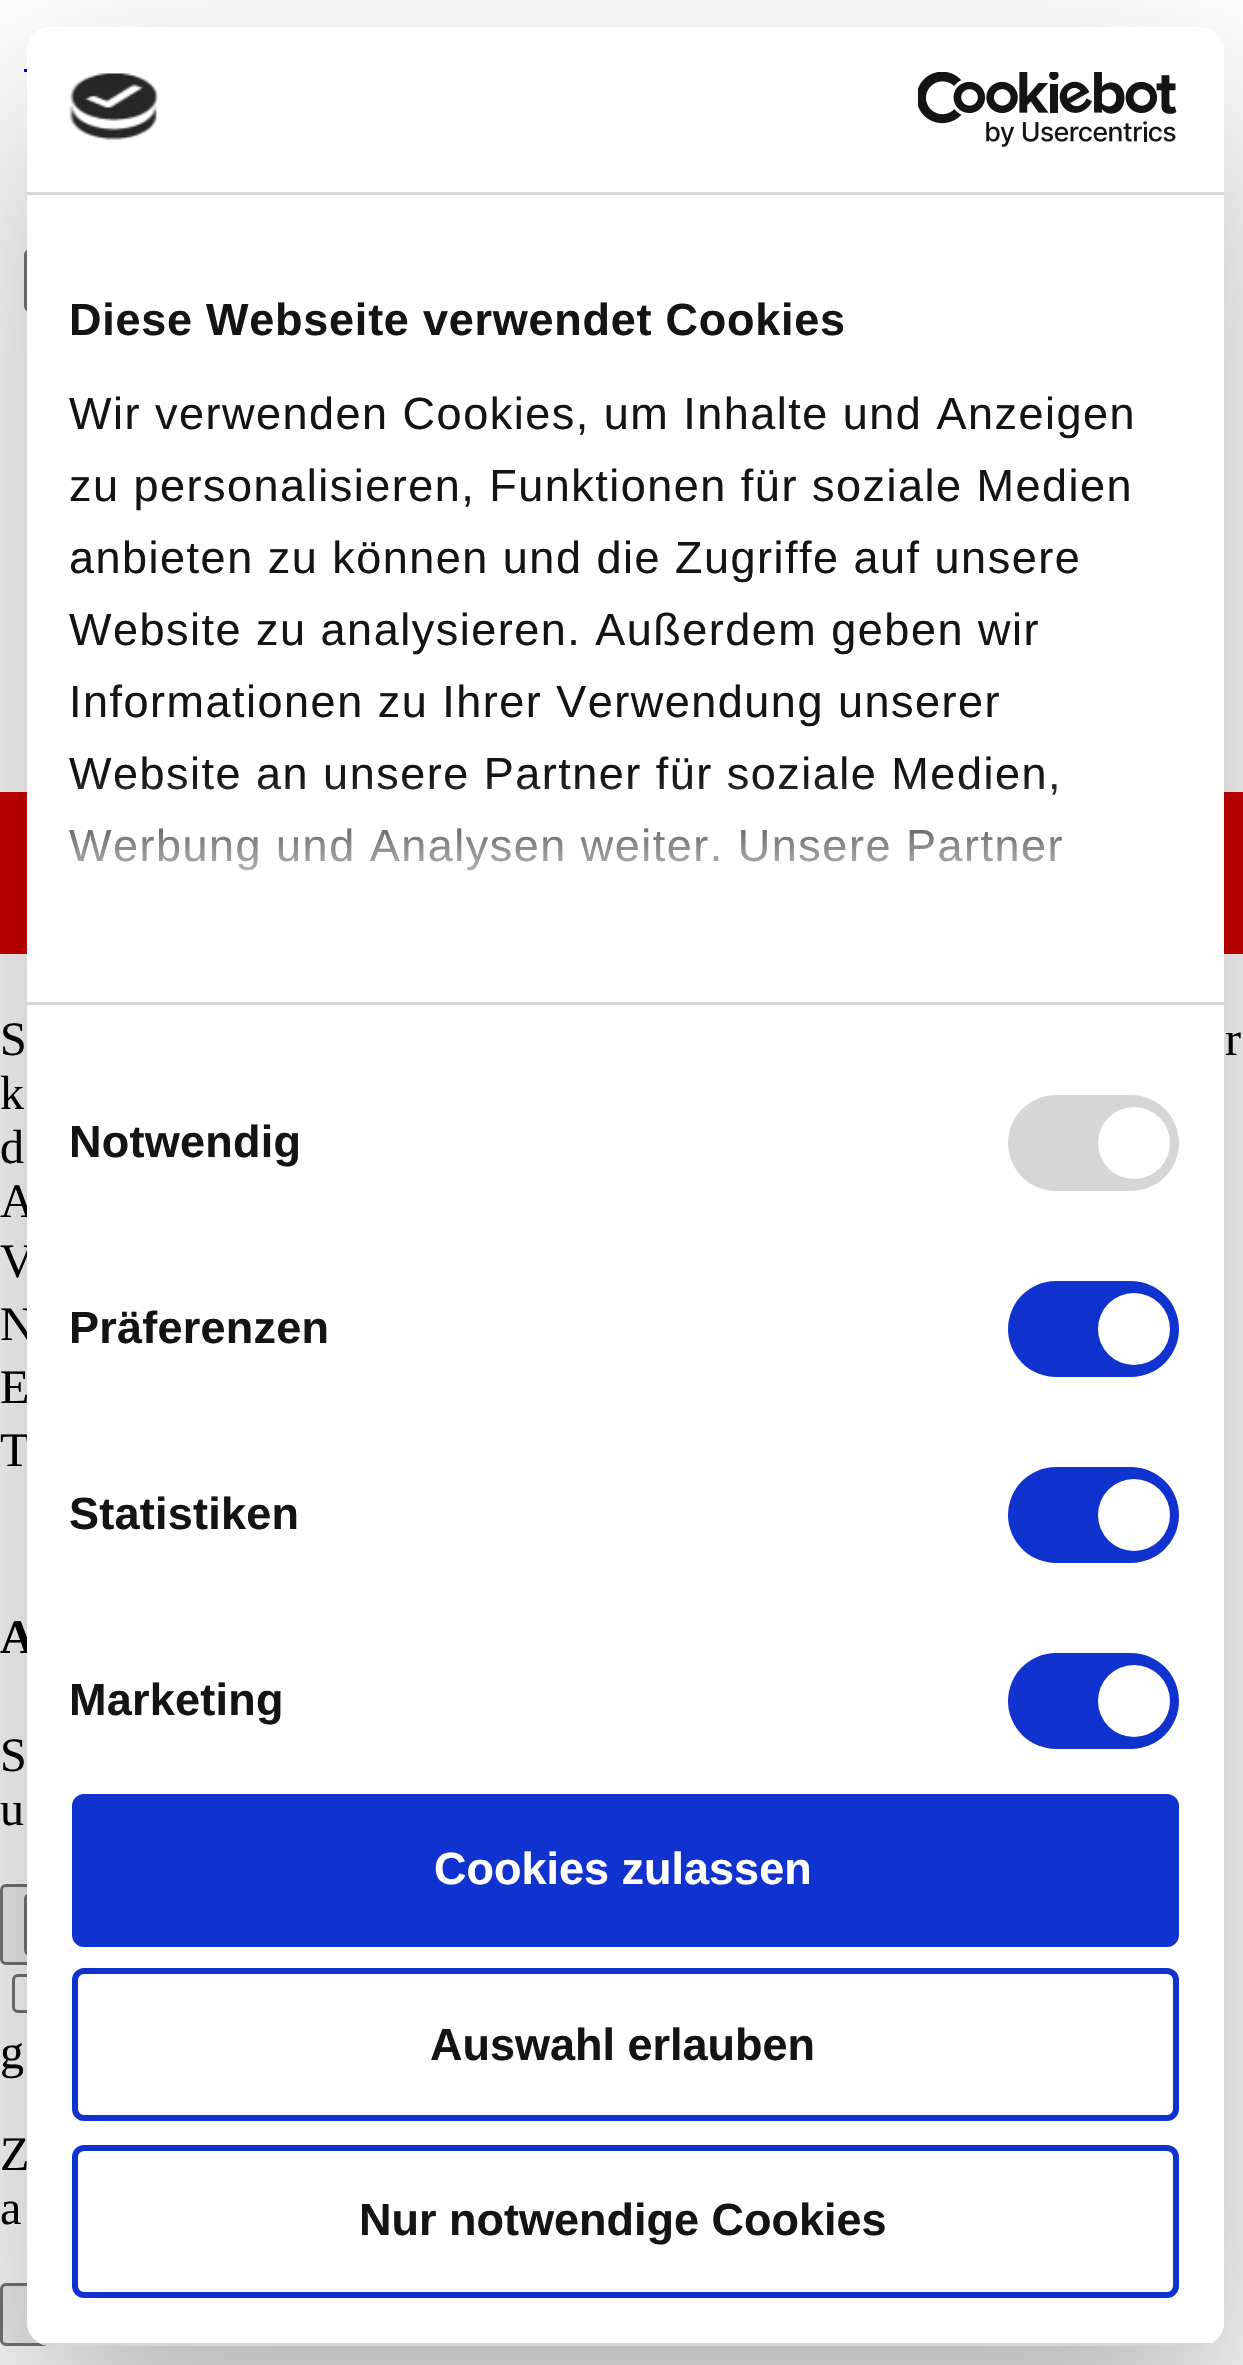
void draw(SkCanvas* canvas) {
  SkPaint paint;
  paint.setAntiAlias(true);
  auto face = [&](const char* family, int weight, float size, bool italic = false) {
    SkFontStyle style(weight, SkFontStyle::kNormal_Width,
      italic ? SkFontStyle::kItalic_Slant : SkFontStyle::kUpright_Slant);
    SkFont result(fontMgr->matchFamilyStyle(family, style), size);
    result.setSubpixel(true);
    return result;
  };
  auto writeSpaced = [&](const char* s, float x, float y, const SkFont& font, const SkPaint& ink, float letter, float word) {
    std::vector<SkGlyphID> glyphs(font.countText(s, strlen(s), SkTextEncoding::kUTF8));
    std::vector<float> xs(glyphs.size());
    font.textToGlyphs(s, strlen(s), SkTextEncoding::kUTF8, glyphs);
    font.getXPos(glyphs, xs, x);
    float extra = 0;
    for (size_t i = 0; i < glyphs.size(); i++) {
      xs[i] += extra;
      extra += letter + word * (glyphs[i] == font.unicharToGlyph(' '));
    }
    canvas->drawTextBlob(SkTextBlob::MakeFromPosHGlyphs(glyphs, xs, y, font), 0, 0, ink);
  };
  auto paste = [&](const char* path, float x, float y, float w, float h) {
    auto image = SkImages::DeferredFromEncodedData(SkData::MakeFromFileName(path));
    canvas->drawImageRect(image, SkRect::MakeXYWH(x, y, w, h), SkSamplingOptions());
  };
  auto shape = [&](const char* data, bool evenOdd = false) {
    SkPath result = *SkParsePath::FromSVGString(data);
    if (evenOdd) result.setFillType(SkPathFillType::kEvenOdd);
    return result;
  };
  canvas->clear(0xffffffff);
  paint.setColor(0xff0000ee);
  canvas->drawRect(SkRect::MakeXYWH(24, 69, 3, 3), paint);
  paint.setStroke(true);
  paint.setStrokeWidth(3);
  paint.setColor(0xff767676);
  canvas->drawRoundRect(SkRect::MakeXYWH(25.5f, 250.5f, 75, 60), 4.5f, 4.5f, paint);
  paint.setStroke(false);
  paint.setColor(0xffd00000);
  canvas->drawRect(SkRect::MakeXYWH(0, 792, 1243, 162), paint);
  paint.setColor(0xffefefef);
  canvas->drawRoundRect(SkRect::MakeXYWH(1.5f, 1885.5f, 1086, 78), 4.5f, 4.5f, paint);
  paint.setStroke(true);
  paint.setColor(0xff767676);
  canvas->drawRoundRect(SkRect::MakeXYWH(1.5f, 1885.5f, 1086, 78), 4.5f, 4.5f, paint);
  canvas->drawRoundRect(SkRect::MakeXYWH(25.5f, 1894.5f, 258, 60), 4.5f, 4.5f, paint);
  canvas->drawRoundRect(SkRect::MakeXYWH(13.5f, 1975.5f, 36, 36), 4.5f, 4.5f, paint);
  paint.setStroke(false);
  paint.setColor(0xffefefef);
  canvas->drawRoundRect(SkRect::MakeXYWH(1.5f, 2284.5f, 390, 60), 4.5f, 4.5f, paint);
  paint.setStroke(true);
  paint.setColor(0xff767676);
  canvas->drawRoundRect(SkRect::MakeXYWH(1.5f, 2284.5f, 390, 60), 4.5f, 4.5f, paint);
  canvas->save();
  canvas->clipPath(shape("M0 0H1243V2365H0ZM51 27H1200C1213.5 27 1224 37.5 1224 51V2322C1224 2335.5 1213.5 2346 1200 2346H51C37.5 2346 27 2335.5 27 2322V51C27 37.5 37.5 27 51 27Z", true), true);
  paint.setStroke(false);
  paint.setColor(0x4d000000);
  paint.setMaskFilter(SkMaskFilter::MakeBlur(kNormal_SkBlurStyle, 102));
  canvas->drawRoundRect(SkRect::MakeXYWH(27, 123, 1197, 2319), 24, 24, paint);
  paint.setMaskFilter(nullptr);
  canvas->restore();
  auto f0 = face("Liberation Serif", 400, 48);
  paint.setColor(0xff000000);
  {
    const struct { const char* s; float x, y; } items[] = {
      {"S", 0, 1055},
      {"r", 1225, 1055},
      {"k", 0, 1109},
      {"d", 0, 1163},
      {"A", 0, 1217},
      {"V", 0, 1277},
      {"N", 0, 1340},
      {"E", 0, 1403},
      {"T", 0, 1466},
    };
    for (auto [s, x, y] : items) {
      canvas->drawString(s, x, y, f0, paint);
    }
  }
  auto f1 = face("Liberation Serif", 700, 48);
  canvas->drawString("A", 0, 1653, f1, paint);
  paint.setColor(0xffffffff);
  canvas->drawRoundRect(SkRect::MakeXYWH(27, 27, 1197, 2319), 24, 24, paint);
  auto f2 = face("Liberation Sans", 400, 45);
  paint.setColor(0xff141414);
  writeSpaced("Werbung und Analysen weiter. Unsere Partner", 69, 861, f2, paint, 1.5f, 0);
  writeSpaced("Website an unsere Partner für soziale Medien,", 69, 789, f2, paint, 1.5f, 0);
  {
    const SkColor colors[] = {0xffffffff, 0xccffffff, 0x00ffffff};
    const float stops[] = {0, 0.5f, 1};
    const SkPoint ends[] = {{605, 1001}, {605, 776}};
    paint.setShader(SkGradientShader::MakeLinear(ends, colors, stops, 3, SkTileMode::kClamp));
    paint.setAlpha(255);
  }
  canvas->drawRect(SkRect::MakeXYWH(69, 779, 993, 92), paint);
  paint.setStroke(true);
  paint.setStrokeWidth(6);
  paint.setShader(nullptr);
  paint.setColor(0xff1032cf);
  canvas->drawRoundRect(SkRect::MakeXYWH(75, 2148, 1101, 147), 9, 9, paint);
  auto f3 = face("Liberation Sans", 700, 45);
  paint.setStroke(false);
  paint.setColor(0xff141414);
  canvas->drawString("Nur notwendige Cookies", 359, 2235, f3, paint);
  paint.setStroke(true);
  paint.setColor(0xff1032cf);
  canvas->drawRoundRect(SkRect::MakeXYWH(75, 1971, 1101, 147), 9, 9, paint);
  paint.setStroke(false);
  paint.setColor(0xff141414);
  canvas->drawString("Auswahl erlauben", 430, 2060, f3, paint);
  paint.setColor(0xff1032cf);
  canvas->drawRoundRect(SkRect::MakeXYWH(75, 1797, 1101, 147), 9, 9, paint);
  paint.setStroke(true);
  canvas->drawRoundRect(SkRect::MakeXYWH(75, 1797, 1101, 147), 9, 9, paint);
  paint.setStroke(false);
  paint.setColor(0xffffffff);
  canvas->drawString("Cookies zulassen", 434, 1884, f3, paint);
  canvas->save();
  canvas->clipPath(shape("M51 27H1200C1213.5 27 1224 37.5 1224 51V2322C1224 2335.5 1213.5 2346 1200 2346H51C37.5 2346 27 2335.5 27 2322V51C27 37.5 37.5 27 51 27Z"), true);
  paint.setColor(0xffd6d6d6);
  canvas->drawRect(SkRect::MakeXYWH(39, 2343, 1173, 3), paint);
  canvas->restore();
  paint.setColor(0xff1032cf);
  canvas->drawRoundRect(SkRect::MakeXYWH(1008, 1653, 171, 96), 48, 48, paint);
  paint.setColor(0xffffffff);
  canvas->drawCircle(1134, 1701, 36, paint);
  paint.setColor(0xff1032cf);
  canvas->drawRoundRect(SkRect::MakeXYWH(1008, 1467, 171, 96), 48, 48, paint);
  paint.setColor(0xffffffff);
  canvas->drawCircle(1134, 1515, 36, paint);
  paint.setColor(0xff1032cf);
  canvas->drawRoundRect(SkRect::MakeXYWH(1008, 1281, 171, 96), 48, 48, paint);
  paint.setColor(0xffffffff);
  canvas->drawCircle(1134, 1329, 36, paint);
  paint.setColor(0xffd6d6d6);
  canvas->drawRoundRect(SkRect::MakeXYWH(1008, 1095, 171, 96), 48, 48, paint);
  paint.setColor(0xffffffff);
  canvas->drawCircle(1134, 1143, 36, paint);
  paint.setColor(0xff141414);
  {
    const struct { const char* s; float x, y; } items[] = {
      {"Informationen zu Ihrer Verwendung unserer", 69, 717},
      {"Website zu analysieren. Außerdem geben wir", 69, 645},
      {"anbieten zu können und die Zugriffe auf unsere", 69, 573},
      {"zu personalisieren, Funktionen für soziale Medien", 69, 501},
      {"Wir verwenden Cookies, um Inhalte und Anzeigen", 69, 429},
    };
    for (auto [s, x, y] : items) {
      writeSpaced(s, x, y, f2, paint, 1.5f, 0);
    }
  }
  writeSpaced("Diese Webseite verwendet Cookies", 69, 335, f3, paint, 0.75f, 0);
  paint.setColor(0xffd6d6d6);
  canvas->drawRect(SkRect::MakeXYWH(27, 1002, 1197, 3), paint);
  paint.setColor(0xff141414);
  {
    const struct { const char* s; float x, y; } items[] = {
      {"Marketing", 69, 1715},
      {"Statistiken", 69, 1529},
      {"Präferenzen", 69, 1343},
      {"Notwendig", 69, 1157},
    };
    for (auto [s, x, y] : items) {
      writeSpaced(s, x, y, f3, paint, 0.25f, 0);
    }
  }
  paste("img/2.png", 918, 72, 259, 75);
  paste("img/1.png", 69, 73, 90, 67);
  paint.setColor(0xffd6d6d6);
  canvas->drawRect(SkRect::MakeXYWH(27, 192, 1197, 3), paint);
  paint.setColor(0xff000000);
  {
    const struct { const char* s; float x, y; } items[] = {
      {"S", 0, 1771},
      {"u", 0, 1825},
      {"g", 0, 2068},
      {"Z", 0, 2170},
      {"a", 0, 2224},
    };
    for (auto [s, x, y] : items) {
      canvas->drawString(s, x, y, f0, paint);
    }
  }
}
